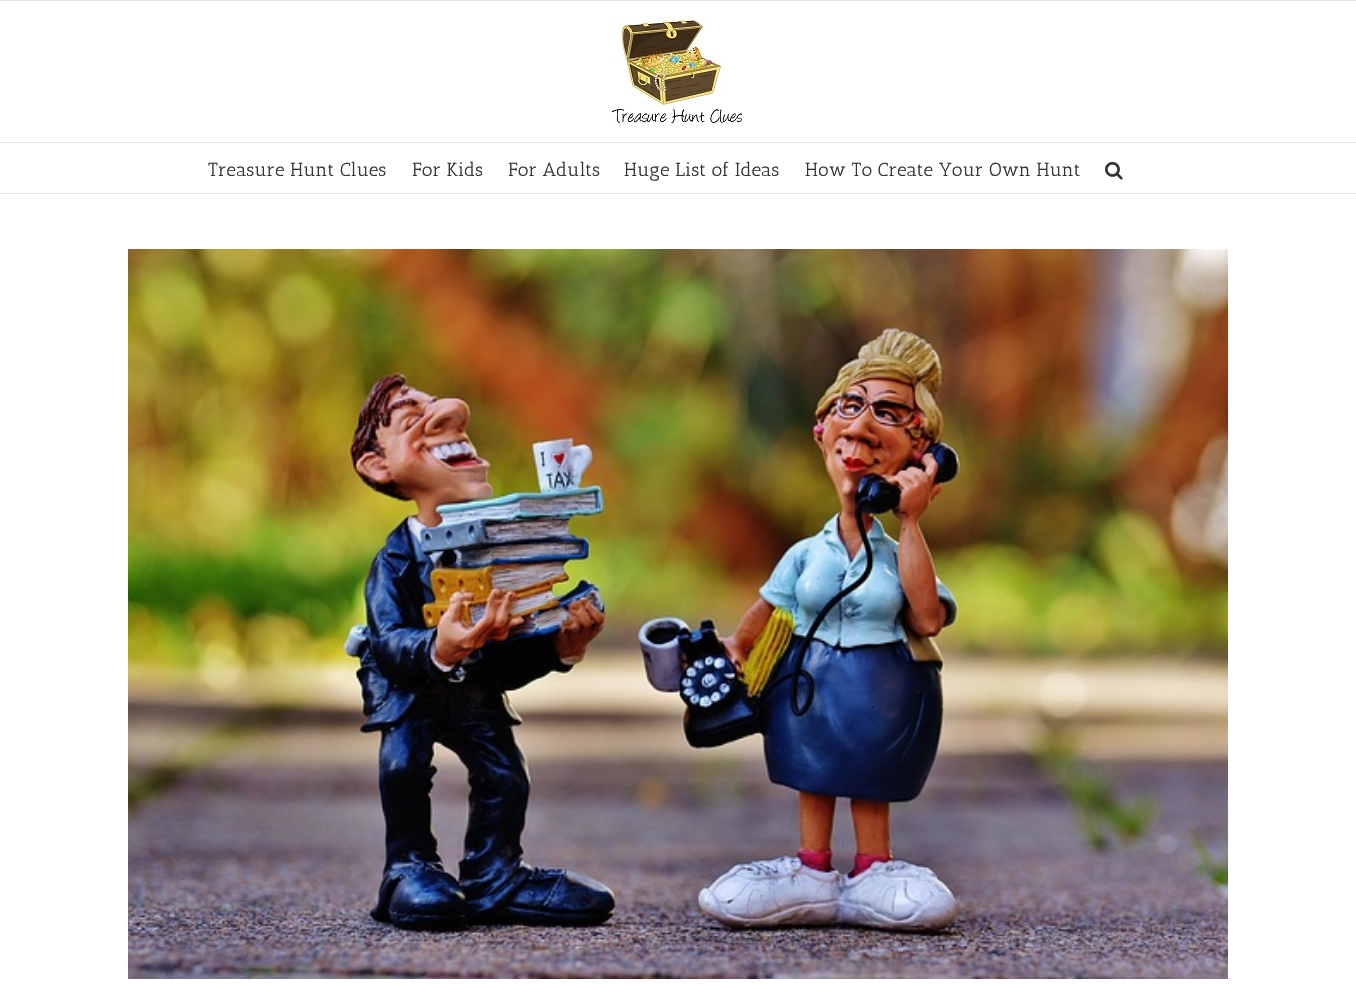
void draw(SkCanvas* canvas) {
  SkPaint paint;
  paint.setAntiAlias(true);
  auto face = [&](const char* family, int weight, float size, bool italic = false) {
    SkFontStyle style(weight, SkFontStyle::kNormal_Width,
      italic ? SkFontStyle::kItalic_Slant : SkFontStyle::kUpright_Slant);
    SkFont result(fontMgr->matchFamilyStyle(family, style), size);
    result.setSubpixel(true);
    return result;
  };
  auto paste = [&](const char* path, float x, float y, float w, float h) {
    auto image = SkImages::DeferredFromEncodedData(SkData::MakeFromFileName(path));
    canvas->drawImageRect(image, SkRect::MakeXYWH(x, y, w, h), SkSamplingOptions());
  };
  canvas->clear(0xffffffff);
  paint.setColor(0xffe5e5e5);
  canvas->drawRect(SkRect::MakeXYWH(0, 0, 1356, 1), paint);
  canvas->drawRect(SkRect::MakeXYWH(0, 142, 1356, 1), paint);
  paste("img/1.png", 611, 16, 132, 111);
  canvas->drawRect(SkRect::MakeXYWH(0, 193, 1356, 1), paint);
  paste("img/2.png", 1105, 161, 18, 19);
  paste("img/3.png", 128, 249, 1100, 730);
  auto f0 = face("Antic Slab", 400, 19);
  paint.setColor(0xff333333);
  {
    const struct { const char* s; float x, y; } items[] = {
      {"Treasure Hunt Clues", 208, 176},
      {"For Kids", 412, 176},
      {"For Adults", 508, 176},
      {"Huge List of Ideas", 624, 176},
      {"How To Create Your Own Hunt", 805, 176},
    };
    for (auto [s, x, y] : items) {
      canvas->drawString(s, x, y, f0, paint);
    }
  }
}
